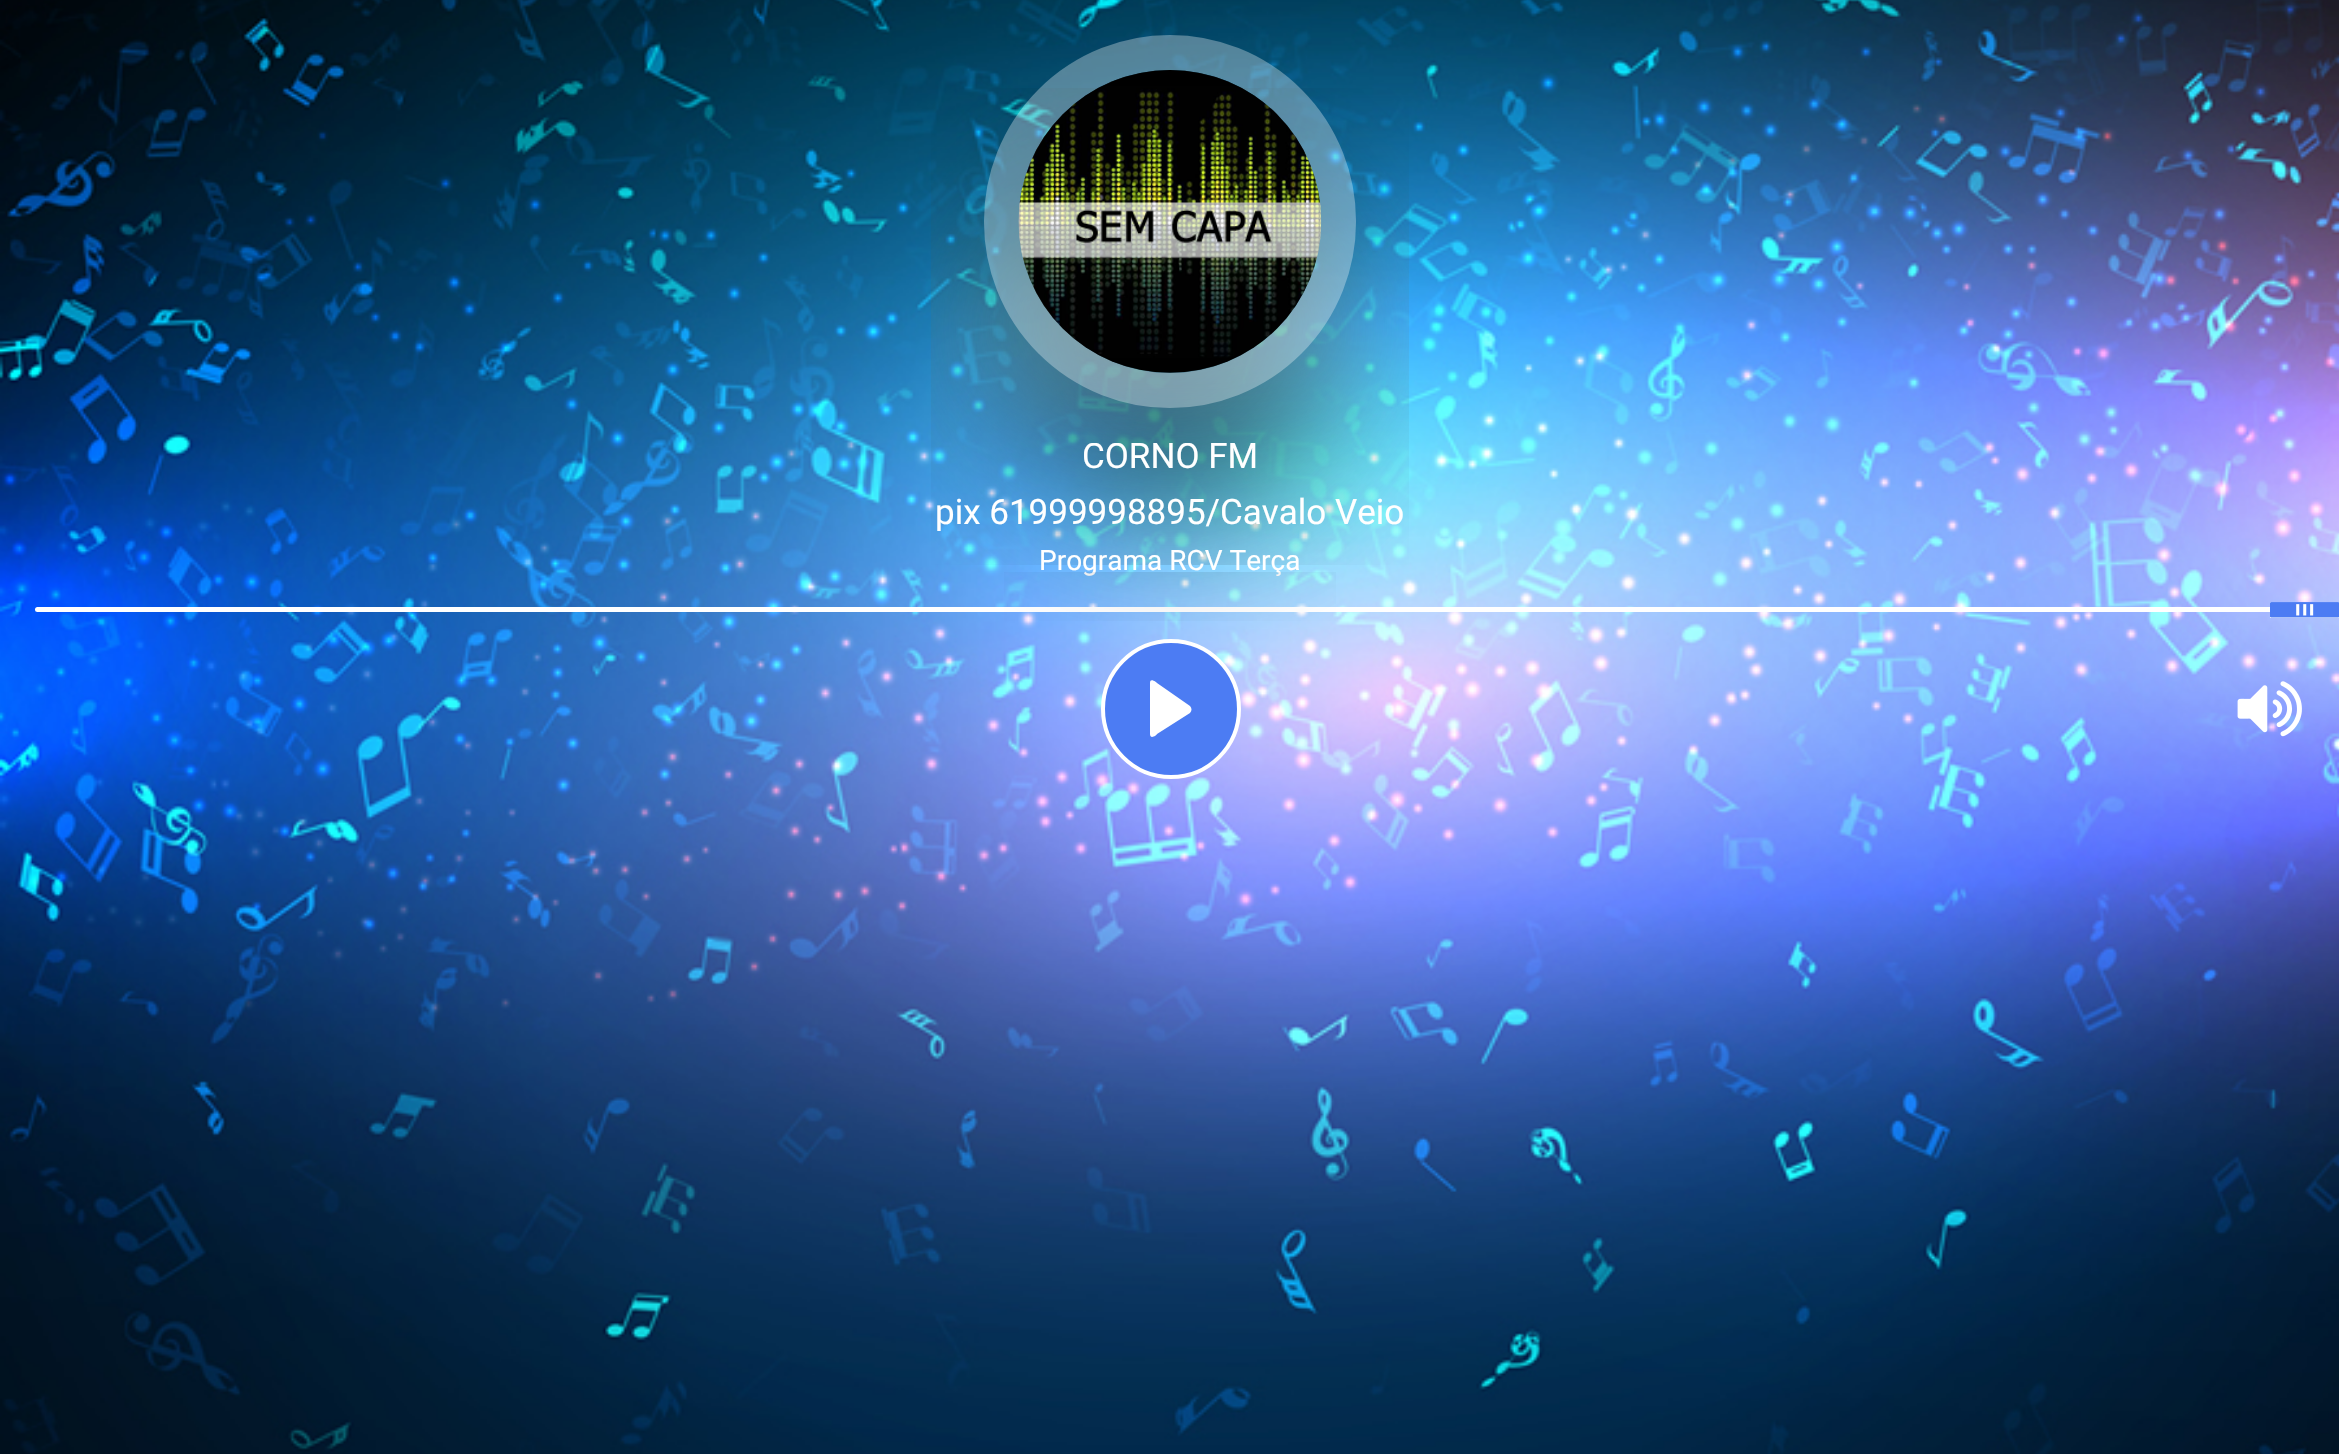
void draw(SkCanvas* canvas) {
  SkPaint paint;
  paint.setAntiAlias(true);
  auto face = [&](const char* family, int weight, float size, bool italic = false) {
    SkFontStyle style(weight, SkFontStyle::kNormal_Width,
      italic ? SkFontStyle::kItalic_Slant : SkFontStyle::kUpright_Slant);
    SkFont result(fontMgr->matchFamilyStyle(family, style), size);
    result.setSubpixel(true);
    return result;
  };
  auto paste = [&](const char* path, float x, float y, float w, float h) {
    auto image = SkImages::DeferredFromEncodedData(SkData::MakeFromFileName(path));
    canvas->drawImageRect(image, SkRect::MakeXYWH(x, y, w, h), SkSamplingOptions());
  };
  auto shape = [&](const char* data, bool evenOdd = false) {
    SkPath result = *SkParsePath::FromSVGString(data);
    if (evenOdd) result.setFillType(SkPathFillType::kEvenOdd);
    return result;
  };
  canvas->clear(0xffffffff);
  paste("img/1.png", 0, 814, 2339, 640);
  paste("img/2.png", 0, 0, 2339, 814);
  paste("img/5.png", 931, 88, 478, 477);
  paint.setStroke(true);
  paint.setStrokeWidth(35);
  paint.setColor(0x40ffffff);
  canvas->drawRoundRect(SkRect::MakeXYWH(1001.5f, 52.5f, 337, 338), 168.5f, 168.5f, paint);
  paste("img/3.png", 1018, 70, 304, 303);
  paint.setColor(0x17ffffff);
  canvas->drawRoundRect(SkRect::MakeXYWH(1001.5f, 52.5f, 337, 338), 168.5f, 168.5f, paint);
  paste("img/4.png", 1018, 70, 303, 303);
  paint.setStroke(false);
  paint.setColor(0xffffffff);
  canvas->drawRoundRect(SkRect::MakeXYWH(35, 607, 2270, 5), 2.5f, 2.5f, paint);
  canvas->drawRect(SkRect::MakeXYWH(2270, 602, 69, 16), paint);
  paste("img/7.png", 2270, 602, 69, 16);
  paint.setColor(0xff4c7cf3);
  canvas->drawCircle(1171, 709, 68, paint);
  paint.setStroke(true);
  paint.setStrokeWidth(4);
  paint.setColor(0xffffffff);
  canvas->drawCircle(1171, 709, 68, paint);
  paint.setStroke(false);
  canvas->drawPath(shape("M1157 734C1157 735 1150 740 1150 734V683C1150 677 1157 683 1157 683L1190 706C1192 708 1192 711 1190 713Z"), paint);
  paste("img/8.png", 2237, 681, 65, 56);
  canvas->save();
  canvas->clipRect(SkRect::MakeXYWH(35, 443, 2270, 42));
  auto f0 = face("Roboto", 400, 35);
  canvas->drawString("CORNO FM", 1082, 468, f0, paint);
  canvas->restore();
  canvas->drawString("pix 61999998895/Cavalo Veio", 935, 524, f0, paint);
  auto f1 = face("Roboto", 400, 28);
  canvas->drawString("Programa RCV Terça", 1039, 570, f1, paint);
  paste("img/6.png", 1004, 572, 332, 49);
}
